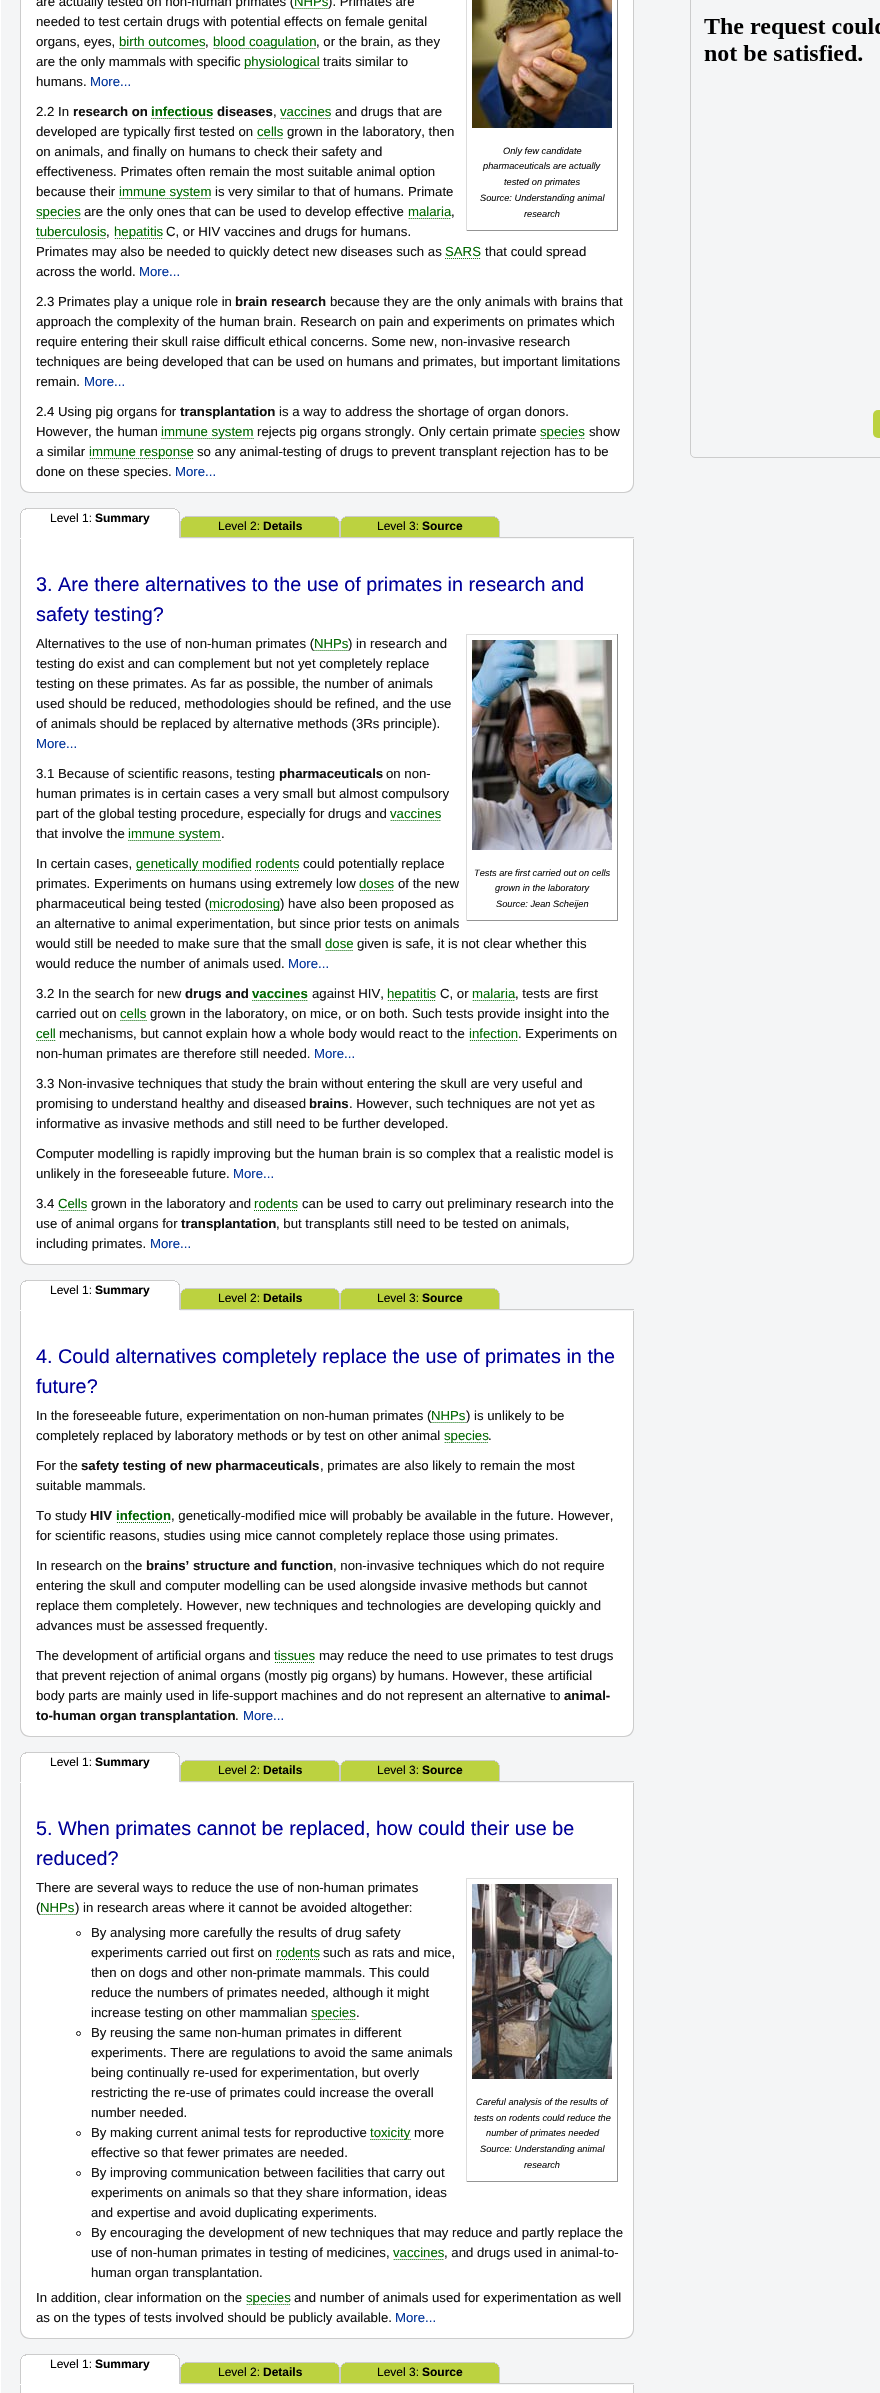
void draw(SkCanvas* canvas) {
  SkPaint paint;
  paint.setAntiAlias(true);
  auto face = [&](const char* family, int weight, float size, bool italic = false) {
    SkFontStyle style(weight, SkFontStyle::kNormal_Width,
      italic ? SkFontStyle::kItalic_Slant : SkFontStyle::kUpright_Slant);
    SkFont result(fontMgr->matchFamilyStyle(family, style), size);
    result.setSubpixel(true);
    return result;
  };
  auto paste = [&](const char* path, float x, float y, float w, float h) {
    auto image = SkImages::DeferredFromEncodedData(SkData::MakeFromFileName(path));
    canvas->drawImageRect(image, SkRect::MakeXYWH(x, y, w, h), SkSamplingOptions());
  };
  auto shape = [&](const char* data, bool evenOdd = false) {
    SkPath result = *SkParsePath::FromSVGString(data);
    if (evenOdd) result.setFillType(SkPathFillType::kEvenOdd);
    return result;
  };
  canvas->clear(0xfff4f5f6);
  paint.setColor(0xffffffff);
  canvas->drawPath(shape("M0-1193H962V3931C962 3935 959 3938 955 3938H7C3 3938 0 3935 0 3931ZM1-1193H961V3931C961 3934 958 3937 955 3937H7C4 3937 1 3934 1 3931Z", true), paint);
  canvas->drawPath(shape("M21-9H633V483C633 488 629 492 624 492H30C25 492 21 488 21 483Z"), paint);
  paint.setColor(0xffcccccc);
  canvas->drawPath(shape("M20-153H634V483C634 489 630 493 624 493H30C24 493 20 489 20 483ZM21-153H633V483C633 488 629 492 624 492H30C25 492 21 488 21 483Z", true), paint);
  paint.setColor(0xff82b482);
  canvas->drawRect(SkRect::MakeXYWH(119, 48, 86, 1), paint);
  paste("img/2.png", 213, 48, 103, 1);
  paste("img/3.png", 244, 68, 76, 1);
  paste("img/4.png", 151, 118, 62, 1);
  paste("img/5.png", 280, 118, 51, 1);
  paste("img/6.png", 257, 138, 26, 1);
  paste("img/7.png", 119, 198, 92, 1);
  paste("img/8.png", 36, 218, 45, 1);
  paste("img/9.png", 408, 218, 43, 1);
  paste("img/10.png", 36, 238, 70, 1);
  paste("img/11.png", 114, 238, 49, 1);
  paste("img/12.png", 445, 258, 36, 1);
  {
    const struct { float x, y, w, h; SkColor color; } items[] = {
      {617, 0, 1, 231, 0xff939393},
      {466, 230, 152, 1, 0xff939393},
      {466, 0, 1, 231, 0xffdddddd},
    };
    for (auto [x, y, w, h, color] : items) {
      paint.setColor(color);
      canvas->drawRect(SkRect::MakeXYWH(x, y, w, h), paint);
    }
  }
  paste("img/13.png", 472, 0, 140, 128);
  paste("img/14.png", 161, 438, 93, 1);
  paste("img/8.png", 540, 438, 45, 1);
  paste("img/15.png", 89, 458, 105, 1);
  paint.setColor(0xffcccccc);
  canvas->drawRect(SkRect::MakeXYWH(180, 537, 454, 1), paint);
  paste("img/16.png", 20, 508, 160, 30);
  paint.setColor(0xffffffff);
  canvas->drawRect(SkRect::MakeXYWH(20, 538, 160, 1), paint);
  paste("img/17.png", 180, 516, 160, 21);
  paste("img/17.png", 340, 516, 160, 21);
  canvas->drawPath(shape("M21 539H633V1255C633 1260 629 1264 624 1264H30C25 1264 21 1260 21 1255Z"), paint);
  paint.setColor(0xffcccccc);
  canvas->drawPath(shape("M20 539H634V1255C634 1261 630 1265 624 1265H30C24 1265 20 1261 20 1255ZM21 539H633V1255C633 1260 629 1264 624 1264H30C25 1264 21 1260 21 1255Z", true), paint);
  paste("img/18.png", 314, 650, 34, 1);
  paste("img/5.png", 390, 820, 51, 1);
  paste("img/14.png", 128, 840, 93, 1);
  paste("img/19.png", 136, 870, 116, 1);
  paste("img/21.png", 359, 890, 35, 1);
  paste("img/23.png", 325, 950, 28, 1);
  {
    const struct { float x, y, w, h; SkColor color; } items[] = {
      {466, 634, 152, 1, 0xffdddddd},
      {617, 634, 1, 287, 0xff939393},
      {466, 920, 152, 1, 0xff939393},
      {466, 634, 1, 287, 0xffdddddd},
    };
    for (auto [x, y, w, h, color] : items) {
      paint.setColor(color);
      canvas->drawRect(SkRect::MakeXYWH(x, y, w, h), paint);
    }
  }
  paste("img/24.png", 472, 640, 140, 210);
  paste("img/25.png", 252, 1000, 56, 1);
  paste("img/11.png", 387, 1000, 49, 1);
  paste("img/9.png", 472, 1000, 43, 1);
  paste("img/26.png", 120, 1020, 27, 1);
  paste("img/27.png", 36, 1040, 20, 1);
  paste("img/11.png", 469, 1040, 49, 1);
  paste("img/28.png", 58, 1210, 29, 1);
  paste("img/20.png", 254, 1210, 43, 1);
  paint.setColor(0xffcccccc);
  canvas->drawRect(SkRect::MakeXYWH(180, 1309, 454, 1), paint);
  paste("img/16.png", 20, 1280, 160, 30);
  paint.setColor(0xffffffff);
  canvas->drawRect(SkRect::MakeXYWH(20, 1310, 160, 1), paint);
  paste("img/17.png", 180, 1288, 160, 21);
  paste("img/17.png", 340, 1288, 160, 21);
  canvas->drawPath(shape("M21 1311H633V1727C633 1732 629 1736 624 1736H30C25 1736 21 1732 21 1727Z"), paint);
  paint.setColor(0xffcccccc);
  canvas->drawPath(shape("M20 1311H634V1727C634 1733 630 1737 624 1737H30C24 1737 20 1733 20 1727ZM21 1311H633V1727C633 1732 629 1736 624 1736H30C25 1736 21 1732 21 1727Z", true), paint);
  paste("img/29.png", 431, 1422, 35, 1);
  paste("img/30.png", 444, 1442, 44, 1);
  paste("img/31.png", 116, 1522, 55, 1);
  paste("img/32.png", 274, 1662, 41, 1);
  canvas->drawRect(SkRect::MakeXYWH(180, 1781, 454, 1), paint);
  paste("img/16.png", 20, 1752, 160, 30);
  paint.setColor(0xffffffff);
  canvas->drawRect(SkRect::MakeXYWH(20, 1782, 160, 1), paint);
  paste("img/17.png", 180, 1760, 160, 21);
  paste("img/17.png", 340, 1760, 160, 21);
  canvas->drawPath(shape("M21 1783H633V2329C633 2334 629 2338 624 2338H30C25 2338 21 2334 21 2329Z"), paint);
  paint.setColor(0xffcccccc);
  canvas->drawPath(shape("M20 1783H634V2329C634 2335 630 2339 624 2339H30C24 2339 20 2335 20 2329ZM21 1783H633V2329C633 2334 629 2338 624 2338H30C25 2338 21 2334 21 2329Z", true), paint);
  paint.setStroke(true);
  paint.setStrokeWidth(1);
  paint.setColor(0xff111111);
  canvas->drawCircle(78.5f, 1933.5f, 2, paint);
  paste("img/20.png", 276, 1959, 43, 1);
  paste("img/8.png", 311, 2019, 45, 1);
  canvas->drawCircle(78.5f, 2033.5f, 2, paint);
  canvas->drawCircle(78.5f, 2133.5f, 2, paint);
  paste("img/34.png", 370, 2139, 41, 1);
  canvas->drawCircle(78.5f, 2173.5f, 2, paint);
  canvas->drawCircle(78.5f, 2233.5f, 2, paint);
  paste("img/5.png", 393, 2259, 51, 1);
  paint.setStroke(false);
  {
    const struct { float x, y, w, h; SkColor color; } items[] = {
      {466, 1878, 152, 1, 0xffdddddd},
      {617, 1878, 1, 304, 0xff939393},
      {466, 2181, 152, 1, 0xff939393},
      {466, 1878, 1, 304, 0xffdddddd},
    };
    for (auto [x, y, w, h, color] : items) {
      paint.setColor(color);
      canvas->drawRect(SkRect::MakeXYWH(x, y, w, h), paint);
    }
  }
  paste("img/35.png", 472, 1884, 140, 195);
  paste("img/30.png", 246, 2304, 44, 1);
  paint.setColor(0xffcccccc);
  canvas->drawRect(SkRect::MakeXYWH(180, 2383, 454, 1), paint);
  paste("img/16.png", 20, 2354, 160, 30);
  paint.setColor(0xffffffff);
  canvas->drawRect(SkRect::MakeXYWH(20, 2384, 160, 1), paint);
  paste("img/17.png", 180, 2362, 160, 21);
  paste("img/17.png", 340, 2362, 160, 21);
  canvas->drawRect(SkRect::MakeXYWH(21, 2385, 612, 8), paint);
  paint.setColor(0xffcccccc);
  canvas->drawPath(shape("M20 2385H634V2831C634 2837 630 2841 624 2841H30C24 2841 20 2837 20 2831ZM21 2385H633V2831C633 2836 629 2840 624 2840H30C25 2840 21 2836 21 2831Z", true), paint);
  paint.setStroke(true);
  canvas->drawRoundRect(SkRect::MakeXYWH(690.5f, -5.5f, 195, 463), 4.5f, 4.5f, paint);
  paste("img/36.png", 704, 18, 176, 43);
  paint.setStroke(false);
  paint.setColor(0xffbcd240);
  canvas->drawRoundRect(SkRect::MakeXYWH(873, 410, 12, 28), 5, 5, paint);
  auto f0 = face("Liberation Sans", 400, 13.2f);
  paint.setColor(0xff111111);
  canvas->drawString("are actually tested on non-human primates (", 36, 6, f0, paint);
  paint.setColor(0xff006600);
  canvas->drawString("NHPs", 294, 6, f0, paint);
  paint.setColor(0xff111111);
  canvas->drawString("). Primates are", 328, 6, f0, paint);
  paste("img/1.png", 294, 8, 34, 1);
  canvas->drawString("needed to test certain drugs with potential effects on female genital", 36, 26, f0, paint);
  canvas->drawString("organs, eyes,", 36, 46, f0, paint);
  paint.setColor(0xff006600);
  canvas->drawString("birth outcomes", 119, 46, f0, paint);
  paint.setColor(0xff111111);
  canvas->drawString(",", 205, 46, f0, paint);
  paint.setColor(0xff006600);
  canvas->drawString("blood coagulation", 213, 46, f0, paint);
  paint.setColor(0xff111111);
  canvas->drawString(", or the brain, as they", 316, 46, f0, paint);
  canvas->drawString("are the only mammals with specific", 36, 66, f0, paint);
  paint.setColor(0xff006600);
  canvas->drawString("physiological", 244, 66, f0, paint);
  paint.setColor(0xff111111);
  canvas->drawString("traits similar to", 323, 66, f0, paint);
  canvas->drawString("humans.", 36, 86, f0, paint);
  paint.setColor(0xff003399);
  canvas->drawString("More...", 90, 86, f0, paint);
  paint.setColor(0xff111111);
  canvas->drawString("2.2 In", 36, 116, f0, paint);
  auto f1 = face("Liberation Sans", 700, 13.2f);
  canvas->drawString("research on", 73, 116, f1, paint);
  paint.setColor(0xff006600);
  canvas->drawString("infectious", 151, 116, f1, paint);
  paint.setColor(0xff111111);
  canvas->drawString("diseases", 217, 116, f1, paint);
  canvas->drawString(",", 273, 116, f0, paint);
  paint.setColor(0xff006600);
  canvas->drawString("vaccines", 280, 116, f0, paint);
  paint.setColor(0xff111111);
  canvas->drawString("and drugs that are", 335, 116, f0, paint);
  canvas->drawString("developed are typically first tested on", 36, 136, f0, paint);
  paint.setColor(0xff006600);
  canvas->drawString("cells", 257, 136, f0, paint);
  paint.setColor(0xff111111);
  {
    const struct { const char* s; float x, y; } items[] = {
      {"grown in the laboratory, then", 287, 136},
      {"on animals, and finally on humans to check their safety and", 36, 156},
      {"effectiveness. Primates often remain the most suitable animal option", 36, 176},
      {"because their", 36, 196},
    };
    for (auto [s, x, y] : items) {
      canvas->drawString(s, x, y, f0, paint);
    }
  }
  paint.setColor(0xff006600);
  canvas->drawString("immune system", 119, 196, f0, paint);
  paint.setColor(0xff111111);
  canvas->drawString("is very similar to that of humans. Primate", 215, 196, f0, paint);
  paint.setColor(0xff006600);
  canvas->drawString("species", 36, 216, f0, paint);
  paint.setColor(0xff111111);
  canvas->drawString("are the only ones that can be used to develop effective", 84, 216, f0, paint);
  paint.setColor(0xff006600);
  canvas->drawString("malaria", 408, 216, f0, paint);
  paint.setColor(0xff111111);
  canvas->drawString(",", 451, 216, f0, paint);
  paint.setColor(0xff006600);
  canvas->drawString("tuberculosis", 36, 236, f0, paint);
  paint.setColor(0xff111111);
  canvas->drawString(",", 106, 236, f0, paint);
  paint.setColor(0xff006600);
  canvas->drawString("hepatitis", 114, 236, f0, paint);
  paint.setColor(0xff111111);
  canvas->drawString("C, or HIV vaccines and drugs for humans.", 166, 236, f0, paint);
  canvas->drawString("Primates may also be needed to quickly detect new diseases such as", 36, 256, f0, paint);
  paint.setColor(0xff006600);
  canvas->drawString("SARS", 445, 256, f0, paint);
  paint.setColor(0xff111111);
  canvas->drawString("that could spread", 485, 256, f0, paint);
  canvas->drawString("across the world.", 36, 276, f0, paint);
  paint.setColor(0xff003399);
  canvas->drawString("More...", 139, 276, f0, paint);
  auto f2 = face("Liberation Sans", 400, 9.25f, true);
  paint.setColor(0xff111111);
  {
    const struct { const char* s; float x, y; } items[] = {
      {"Only few candidate", 503, 154},
      {"pharmaceuticals are actually", 483, 169},
      {"tested on primates", 504, 185},
      {"Source: Understanding animal", 480, 201},
      {"research", 524, 217},
    };
    for (auto [s, x, y] : items) {
      canvas->drawString(s, x, y, f2, paint);
    }
  }
  canvas->drawString("2.3 Primates play a unique role in", 36, 306, f0, paint);
  canvas->drawString("brain research", 235, 306, f1, paint);
  {
    const struct { const char* s; float x, y; } items[] = {
      {"because they are the only animals with brains that", 330, 306},
      {"approach the complexity of the human brain. Research on pain and experiments on primates which", 36, 326},
      {"require entering their skull raise difficult ethical concerns. Some new, non-invasive research", 36, 346},
      {"techniques are being developed that can be used on humans and primates, but important limitations", 36, 366},
      {"remain.", 36, 386},
    };
    for (auto [s, x, y] : items) {
      canvas->drawString(s, x, y, f0, paint);
    }
  }
  paint.setColor(0xff003399);
  canvas->drawString("More...", 84, 386, f0, paint);
  paint.setColor(0xff111111);
  canvas->drawString("2.4 Using pig organs for", 36, 416, f0, paint);
  canvas->drawString("transplantation", 180, 416, f1, paint);
  canvas->drawString("is a way to address the shortage of organ donors.", 279, 416, f0, paint);
  canvas->drawString("However, the human", 36, 436, f0, paint);
  paint.setColor(0xff006600);
  canvas->drawString("immune system", 161, 436, f0, paint);
  paint.setColor(0xff111111);
  canvas->drawString("rejects pig organs strongly. Only certain primate", 257, 436, f0, paint);
  paint.setColor(0xff006600);
  canvas->drawString("species", 540, 436, f0, paint);
  paint.setColor(0xff111111);
  canvas->drawString("show", 589, 436, f0, paint);
  canvas->drawString("a similar", 36, 456, f0, paint);
  paint.setColor(0xff006600);
  canvas->drawString("immune response", 89, 456, f0, paint);
  paint.setColor(0xff111111);
  canvas->drawString("so any animal-testing of drugs to prevent transplant rejection has to be", 197, 456, f0, paint);
  canvas->drawString("done on these species.", 36, 476, f0, paint);
  paint.setColor(0xff003399);
  canvas->drawString("More...", 175, 476, f0, paint);
  auto f3 = face("Liberation Sans", 400, 12);
  paint.setColor(0xff000000);
  canvas->drawString("Level 1:", 50, 522, f3, paint);
  auto f4 = face("Liberation Sans", 700, 12);
  canvas->drawString("Summary", 95, 522, f4, paint);
  canvas->drawString("Level 2:", 218, 530, f3, paint);
  canvas->drawString("Details", 263, 530, f4, paint);
  canvas->drawString("Level 3:", 377, 530, f3, paint);
  canvas->drawString("Source", 422, 530, f4, paint);
  auto f5 = face("Liberation Sans", 400, 19.8f);
  paint.setColor(0xff000099);
  canvas->drawString("3. Are there alternatives to the use of primates in research and", 36, 591, f5, paint);
  canvas->drawString("safety testing?", 36, 621, f5, paint);
  paint.setColor(0xff111111);
  canvas->drawString("Alternatives to the use of non-human primates (", 36, 648, f0, paint);
  paint.setColor(0xff006600);
  canvas->drawString("NHPs", 314, 648, f0, paint);
  paint.setColor(0xff111111);
  {
    const struct { const char* s; float x, y; } items[] = {
      {") in research and", 348, 648},
      {"testing do exist and can complement but not yet completely replace", 36, 668},
      {"testing on these primates. As far as possible, the number of animals", 36, 688},
      {"used should be reduced, methodologies should be refined, and the use", 36, 708},
      {"of animals should be replaced by alternative methods (3Rs principle).", 36, 728},
    };
    for (auto [s, x, y] : items) {
      canvas->drawString(s, x, y, f0, paint);
    }
  }
  paint.setColor(0xff003399);
  canvas->drawString("More...", 36, 748, f0, paint);
  paint.setColor(0xff111111);
  canvas->drawString("3.1 Because of scientific reasons, testing", 36, 778, f0, paint);
  canvas->drawString("pharmaceuticals", 279, 778, f1, paint);
  {
    const struct { const char* s; float x, y; } items[] = {
      {"on non-", 386, 778},
      {"human primates is in certain cases a very small but almost compulsory", 36, 798},
      {"part of the global testing procedure, especially for drugs and", 36, 818},
    };
    for (auto [s, x, y] : items) {
      canvas->drawString(s, x, y, f0, paint);
    }
  }
  paint.setColor(0xff006600);
  canvas->drawString("vaccines", 390, 818, f0, paint);
  paint.setColor(0xff111111);
  canvas->drawString("that involve the", 36, 838, f0, paint);
  paint.setColor(0xff006600);
  canvas->drawString("immune system", 128, 838, f0, paint);
  paint.setColor(0xff111111);
  canvas->drawString(".", 221, 838, f0, paint);
  canvas->drawString("In certain cases,", 36, 868, f0, paint);
  paint.setColor(0xff006600);
  canvas->drawString("genetically modified rodents", 136, 868, f0, paint);
  paint.setColor(0xff111111);
  canvas->drawString("could potentially replace", 303, 868, f0, paint);
  paste("img/20.png", 255, 870, 43, 1);
  canvas->drawString("primates. Experiments on humans using extremely low", 36, 888, f0, paint);
  paint.setColor(0xff006600);
  canvas->drawString("doses", 359, 888, f0, paint);
  paint.setColor(0xff111111);
  {
    const struct { const char* s; float x, y; } items[] = {
      {"of the new", 398, 888},
      {"pharmaceutical being tested (", 36, 908},
      {") have also been proposed as", 280, 908},
    };
    for (auto [s, x, y] : items) {
      canvas->drawString(s, x, y, f0, paint);
    }
  }
  paste("img/22.png", 209, 910, 71, 1);
  paint.setColor(0xff006600);
  canvas->drawString("microdosing", 209, 908, f0, paint);
  paint.setColor(0xff111111);
  canvas->drawString("an alternative to animal experimentation, but since prior tests on animals", 36, 928, f0, paint);
  canvas->drawString("would still be needed to make sure that the small", 36, 948, f0, paint);
  paint.setColor(0xff006600);
  canvas->drawString("dose", 325, 948, f0, paint);
  paint.setColor(0xff111111);
  canvas->drawString("given is safe, it is not clear whether this", 357, 948, f0, paint);
  canvas->drawString("would reduce the number of animals used.", 36, 968, f0, paint);
  paint.setColor(0xff003399);
  canvas->drawString("More...", 288, 968, f0, paint);
  paint.setColor(0xff111111);
  {
    const struct { const char* s; float x, y; } items[] = {
      {"Tests are first carried out on cells", 474, 876},
      {"grown in the laboratory", 495, 891},
      {"Source: Jean Scheijen", 496, 907},
    };
    for (auto [s, x, y] : items) {
      canvas->drawString(s, x, y, f2, paint);
    }
  }
  canvas->drawString("3.2 In the search for new", 36, 998, f0, paint);
  canvas->drawString("drugs and", 185, 998, f1, paint);
  paint.setColor(0xff006600);
  canvas->drawString("vaccines", 252, 998, f1, paint);
  paint.setColor(0xff111111);
  canvas->drawString("against HIV,", 312, 998, f0, paint);
  paint.setColor(0xff006600);
  canvas->drawString("hepatitis", 387, 998, f0, paint);
  paint.setColor(0xff111111);
  canvas->drawString("C, or", 440, 998, f0, paint);
  paint.setColor(0xff006600);
  canvas->drawString("malaria", 472, 998, f0, paint);
  paint.setColor(0xff111111);
  canvas->drawString(", tests are first", 515, 998, f0, paint);
  canvas->drawString("carried out on", 36, 1018, f0, paint);
  paint.setColor(0xff006600);
  canvas->drawString("cells", 120, 1018, f0, paint);
  paint.setColor(0xff111111);
  canvas->drawString("grown in the laboratory, on mice, or on both. Such tests provide insight into the", 150, 1018, f0, paint);
  paint.setColor(0xff006600);
  canvas->drawString("cell", 36, 1038, f0, paint);
  paint.setColor(0xff111111);
  canvas->drawString("mechanisms, but cannot explain how a whole body would react to the", 59, 1038, f0, paint);
  paint.setColor(0xff006600);
  canvas->drawString("infection", 469, 1038, f0, paint);
  paint.setColor(0xff111111);
  canvas->drawString(". Experiments on", 518, 1038, f0, paint);
  canvas->drawString("non-human primates are therefore still needed.", 36, 1058, f0, paint);
  paint.setColor(0xff003399);
  canvas->drawString("More...", 314, 1058, f0, paint);
  paint.setColor(0xff111111);
  canvas->drawString("3.3 Non-invasive techniques that study the brain without entering the skull are very useful and", 36, 1088, f0, paint);
  canvas->drawString("promising to understand healthy and diseased", 36, 1108, f0, paint);
  canvas->drawString("brains", 309, 1108, f1, paint);
  {
    const struct { const char* s; float x, y; } items[] = {
      {". However, such techniques are not yet as", 349, 1108},
      {"informative as invasive methods and still need to be further developed.", 36, 1128},
      {"Computer modelling is rapidly improving but the human brain is so complex that a realistic model is", 36, 1158},
      {"unlikely in the foreseeable future.", 36, 1178},
    };
    for (auto [s, x, y] : items) {
      canvas->drawString(s, x, y, f0, paint);
    }
  }
  paint.setColor(0xff003399);
  canvas->drawString("More...", 233, 1178, f0, paint);
  paint.setColor(0xff111111);
  canvas->drawString("3.4", 36, 1208, f0, paint);
  paint.setColor(0xff006600);
  canvas->drawString("Cells", 58, 1208, f0, paint);
  paint.setColor(0xff111111);
  canvas->drawString("grown in the laboratory and", 91, 1208, f0, paint);
  paint.setColor(0xff006600);
  canvas->drawString("rodents", 254, 1208, f0, paint);
  paint.setColor(0xff111111);
  canvas->drawString("can be used to carry out preliminary research into the", 302, 1208, f0, paint);
  canvas->drawString("use of animal organs for", 36, 1228, f0, paint);
  canvas->drawString("transplantation", 181, 1228, f1, paint);
  canvas->drawString(", but transplants still need to be tested on animals,", 276, 1228, f0, paint);
  canvas->drawString("including primates.", 36, 1248, f0, paint);
  paint.setColor(0xff003399);
  canvas->drawString("More...", 150, 1248, f0, paint);
  paint.setColor(0xff000000);
  canvas->drawString("Level 1:", 50, 1294, f3, paint);
  canvas->drawString("Summary", 95, 1294, f4, paint);
  canvas->drawString("Level 2:", 218, 1302, f3, paint);
  canvas->drawString("Details", 263, 1302, f4, paint);
  canvas->drawString("Level 3:", 377, 1302, f3, paint);
  canvas->drawString("Source", 422, 1302, f4, paint);
  paint.setColor(0xff000099);
  canvas->drawString("4. Could alternatives completely replace the use of primates in the", 36, 1363, f5, paint);
  canvas->drawString("future?", 36, 1393, f5, paint);
  paint.setColor(0xff111111);
  canvas->drawString("In the foreseeable future, experimentation on non-human primates (", 36, 1420, f0, paint);
  paint.setColor(0xff006600);
  canvas->drawString("NHPs", 431, 1420, f0, paint);
  paint.setColor(0xff111111);
  canvas->drawString(") is unlikely to be", 466, 1420, f0, paint);
  canvas->drawString("completely replaced by laboratory methods or by test on other animal", 36, 1440, f0, paint);
  paint.setColor(0xff006600);
  canvas->drawString("species", 444, 1440, f0, paint);
  paint.setColor(0xff111111);
  canvas->drawString(".", 488, 1440, f0, paint);
  canvas->drawString("For the", 36, 1470, f0, paint);
  canvas->drawString("safety testing of new pharmaceuticals", 81, 1470, f1, paint);
  {
    const struct { const char* s; float x, y; } items[] = {
      {", primates are also likely to remain the most", 320, 1470},
      {"suitable mammals.", 36, 1490},
      {"To study", 36, 1520},
    };
    for (auto [s, x, y] : items) {
      canvas->drawString(s, x, y, f0, paint);
    }
  }
  canvas->drawString("HIV", 90, 1520, f1, paint);
  paint.setColor(0xff006600);
  canvas->drawString("infection", 116, 1520, f1, paint);
  paint.setColor(0xff111111);
  {
    const struct { const char* s; float x, y; } items[] = {
      {", genetically-modified mice will probably be available in the future. However,", 171, 1520},
      {"for scientific reasons, studies using mice cannot completely replace those using primates.", 36, 1540},
      {"In research on the", 36, 1570},
    };
    for (auto [s, x, y] : items) {
      canvas->drawString(s, x, y, f0, paint);
    }
  }
  canvas->drawString("brains’ structure and function", 146, 1570, f1, paint);
  {
    const struct { const char* s; float x, y; } items[] = {
      {", non-invasive techniques which do not require", 333, 1570},
      {"entering the skull and computer modelling can be used alongside invasive methods but cannot", 36, 1590},
      {"replace them completely. However, new techniques and technologies are developing quickly and", 36, 1610},
      {"advances must be assessed frequently.", 36, 1630},
      {"The development of artificial organs and", 36, 1660},
    };
    for (auto [s, x, y] : items) {
      canvas->drawString(s, x, y, f0, paint);
    }
  }
  paint.setColor(0xff006600);
  canvas->drawString("tissues", 274, 1660, f0, paint);
  paint.setColor(0xff111111);
  {
    const struct { const char* s; float x, y; } items[] = {
      {"may reduce the need to use primates to test drugs", 319, 1660},
      {"that prevent rejection of animal organs (mostly pig organs) by humans. However, these artificial", 36, 1680},
      {"body parts are mainly used in life-support machines and do not represent an alternative to", 36, 1700},
    };
    for (auto [s, x, y] : items) {
      canvas->drawString(s, x, y, f0, paint);
    }
  }
  canvas->drawString("animal-", 564, 1700, f1, paint);
  canvas->drawString("to-human organ transplantation", 36, 1720, f1, paint);
  canvas->drawString(".", 235, 1720, f0, paint);
  paint.setColor(0xff003399);
  canvas->drawString("More...", 243, 1720, f0, paint);
  paint.setColor(0xff000000);
  canvas->drawString("Level 1:", 50, 1766, f3, paint);
  canvas->drawString("Summary", 95, 1766, f4, paint);
  canvas->drawString("Level 2:", 218, 1774, f3, paint);
  canvas->drawString("Details", 263, 1774, f4, paint);
  canvas->drawString("Level 3:", 377, 1774, f3, paint);
  canvas->drawString("Source", 422, 1774, f4, paint);
  paint.setColor(0xff000099);
  canvas->drawString("5. When primates cannot be replaced, how could their use be", 36, 1835, f5, paint);
  canvas->drawString("reduced?", 36, 1865, f5, paint);
  paint.setColor(0xff111111);
  canvas->drawString("There are several ways to reduce the use of non-human primates", 36, 1892, f0, paint);
  canvas->drawString("(", 36, 1912, f0, paint);
  paint.setColor(0xff006600);
  canvas->drawString("NHPs", 40, 1912, f0, paint);
  paste("img/33.png", 40, 1914, 35, 1);
  paint.setColor(0xff111111);
  {
    const struct { const char* s; float x, y; } items[] = {
      {") in research areas where it cannot be avoided altogether:", 75, 1912},
      {"By analysing more carefully the results of drug safety", 91, 1937},
      {"experiments carried out first on", 91, 1957},
    };
    for (auto [s, x, y] : items) {
      canvas->drawString(s, x, y, f0, paint);
    }
  }
  paint.setColor(0xff006600);
  canvas->drawString("rodents", 276, 1957, f0, paint);
  paint.setColor(0xff111111);
  {
    const struct { const char* s; float x, y; } items[] = {
      {"such as rats and mice,", 323, 1957},
      {"then on dogs and other non-primate mammals. This could", 91, 1977},
      {"reduce the numbers of primates needed, although it might", 91, 1997},
      {"increase testing on other mammalian", 91, 2017},
    };
    for (auto [s, x, y] : items) {
      canvas->drawString(s, x, y, f0, paint);
    }
  }
  paint.setColor(0xff006600);
  canvas->drawString("species", 311, 2017, f0, paint);
  paint.setColor(0xff111111);
  {
    const struct { const char* s; float x, y; } items[] = {
      {".", 356, 2017},
      {"By reusing the same non-human primates in different", 91, 2037},
      {"experiments. There are regulations to avoid the same animals", 91, 2057},
      {"being continually re-used for experimentation, but overly", 91, 2077},
      {"restricting the re-use of primates could increase the overall", 91, 2097},
      {"number needed.", 91, 2117},
      {"By making current animal tests for reproductive", 91, 2137},
    };
    for (auto [s, x, y] : items) {
      canvas->drawString(s, x, y, f0, paint);
    }
  }
  paint.setColor(0xff006600);
  canvas->drawString("toxicity", 370, 2137, f0, paint);
  paint.setColor(0xff111111);
  {
    const struct { const char* s; float x, y; } items[] = {
      {"more", 414, 2137},
      {"effective so that fewer primates are needed.", 91, 2157},
      {"By improving communication between facilities that carry out", 91, 2177},
      {"experiments on animals so that they share information, ideas", 91, 2197},
      {"and expertise and avoid duplicating experiments.", 91, 2217},
      {"By encouraging the development of new techniques that may reduce and partly replace the", 91, 2237},
      {"use of non-human primates in testing of medicines,", 91, 2257},
    };
    for (auto [s, x, y] : items) {
      canvas->drawString(s, x, y, f0, paint);
    }
  }
  paint.setColor(0xff006600);
  canvas->drawString("vaccines", 393, 2257, f0, paint);
  paint.setColor(0xff111111);
  canvas->drawString(", and drugs used in animal-to-", 444, 2257, f0, paint);
  canvas->drawString("human organ transplantation.", 91, 2277, f0, paint);
  {
    const struct { const char* s; float x, y; } items[] = {
      {"Careful analysis of the results of", 476, 2105},
      {"tests on rodents could reduce the", 474, 2121},
      {"number of primates needed", 486, 2136},
      {"Source: Understanding animal", 480, 2152},
      {"research", 524, 2168},
    };
    for (auto [s, x, y] : items) {
      canvas->drawString(s, x, y, f2, paint);
    }
  }
  canvas->drawString("In addition, clear information on the", 36, 2302, f0, paint);
  paint.setColor(0xff006600);
  canvas->drawString("species", 246, 2302, f0, paint);
  paint.setColor(0xff111111);
  canvas->drawString("and number of animals used for experimentation as well", 294, 2302, f0, paint);
  canvas->drawString("as on the types of tests involved should be publicly available.", 36, 2322, f0, paint);
  paint.setColor(0xff003399);
  canvas->drawString("More...", 395, 2322, f0, paint);
  paint.setColor(0xff000000);
  canvas->drawString("Level 1:", 50, 2368, f3, paint);
  canvas->drawString("Summary", 95, 2368, f4, paint);
  canvas->drawString("Level 2:", 218, 2376, f3, paint);
  canvas->drawString("Details", 263, 2376, f4, paint);
  canvas->drawString("Level 3:", 377, 2376, f3, paint);
  canvas->drawString("Source", 422, 2376, f4, paint);
}
